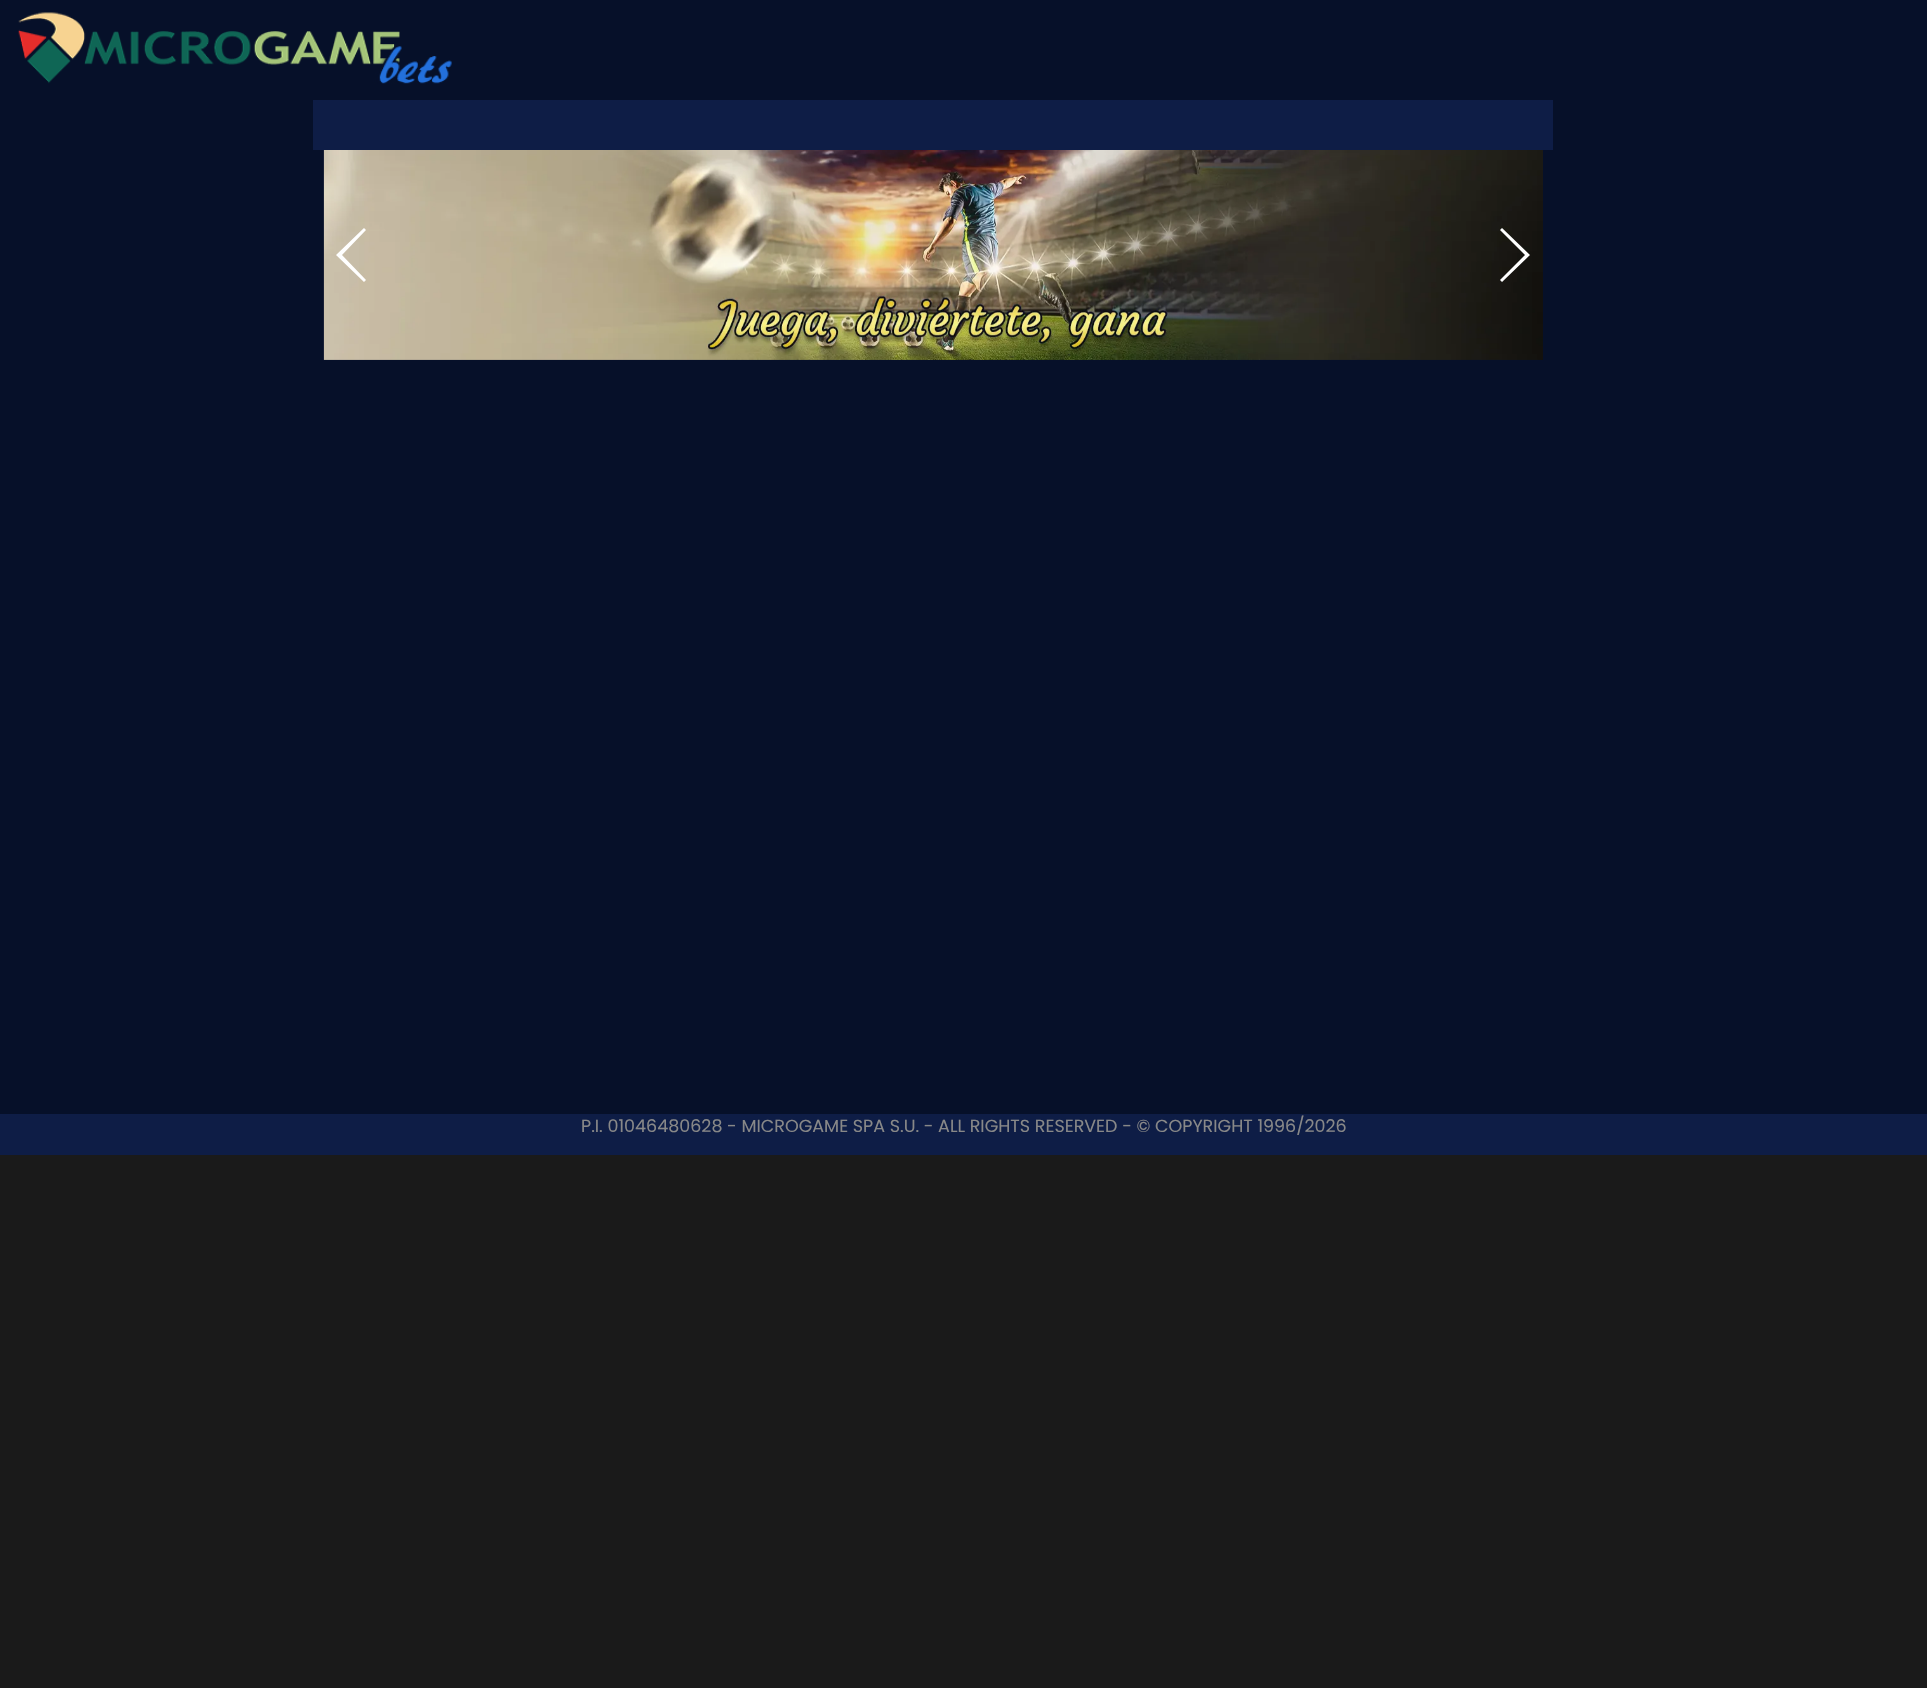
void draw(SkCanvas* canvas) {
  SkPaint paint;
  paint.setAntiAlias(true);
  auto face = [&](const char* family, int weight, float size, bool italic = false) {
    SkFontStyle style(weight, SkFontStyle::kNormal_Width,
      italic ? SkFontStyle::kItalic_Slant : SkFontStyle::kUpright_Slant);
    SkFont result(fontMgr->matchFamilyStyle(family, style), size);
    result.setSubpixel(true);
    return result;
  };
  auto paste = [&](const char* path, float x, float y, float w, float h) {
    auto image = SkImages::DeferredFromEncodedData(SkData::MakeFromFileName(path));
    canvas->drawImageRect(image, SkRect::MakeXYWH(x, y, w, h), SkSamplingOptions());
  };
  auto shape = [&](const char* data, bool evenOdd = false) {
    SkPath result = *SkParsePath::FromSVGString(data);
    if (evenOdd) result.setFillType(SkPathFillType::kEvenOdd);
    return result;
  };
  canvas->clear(0xff1a1a1a);
  paint.setColor(0xff061029);
  canvas->drawRect(SkRect::MakeXYWH(0, 0, 1927, 1114), paint);
  paste("img/1.png", 18, 12, 434, 72);
  paint.setColor(0xff0e1d46);
  canvas->drawRect(SkRect::MakeXYWH(313, 100, 1240, 50), paint);
  paste("img/2.png", 323, 150, 1220, 210);
  paint.setColor(0xffffffff);
  canvas->drawPath(shape("M336 255L364 228L366 230L342 255L366 280L364 282Z"), paint);
  canvas->drawPath(shape("M1530 255L1502 282L1500 280L1525 255L1500 230L1502 228Z"), paint);
  paint.setColor(0xff0e1d46);
  canvas->drawRect(SkRect::MakeXYWH(0, 1114, 1927, 41), paint);
  auto f0 = face("Poppins", 400, 17.5f);
  paint.setColor(0xff888888);
  canvas->drawString("P.I. 01046480628 - MICROGAME SPA S.U. - ALL RIGHTS RESERVED - © COPYRIGHT 1996/2026", 581, 1132, f0, paint);
}
